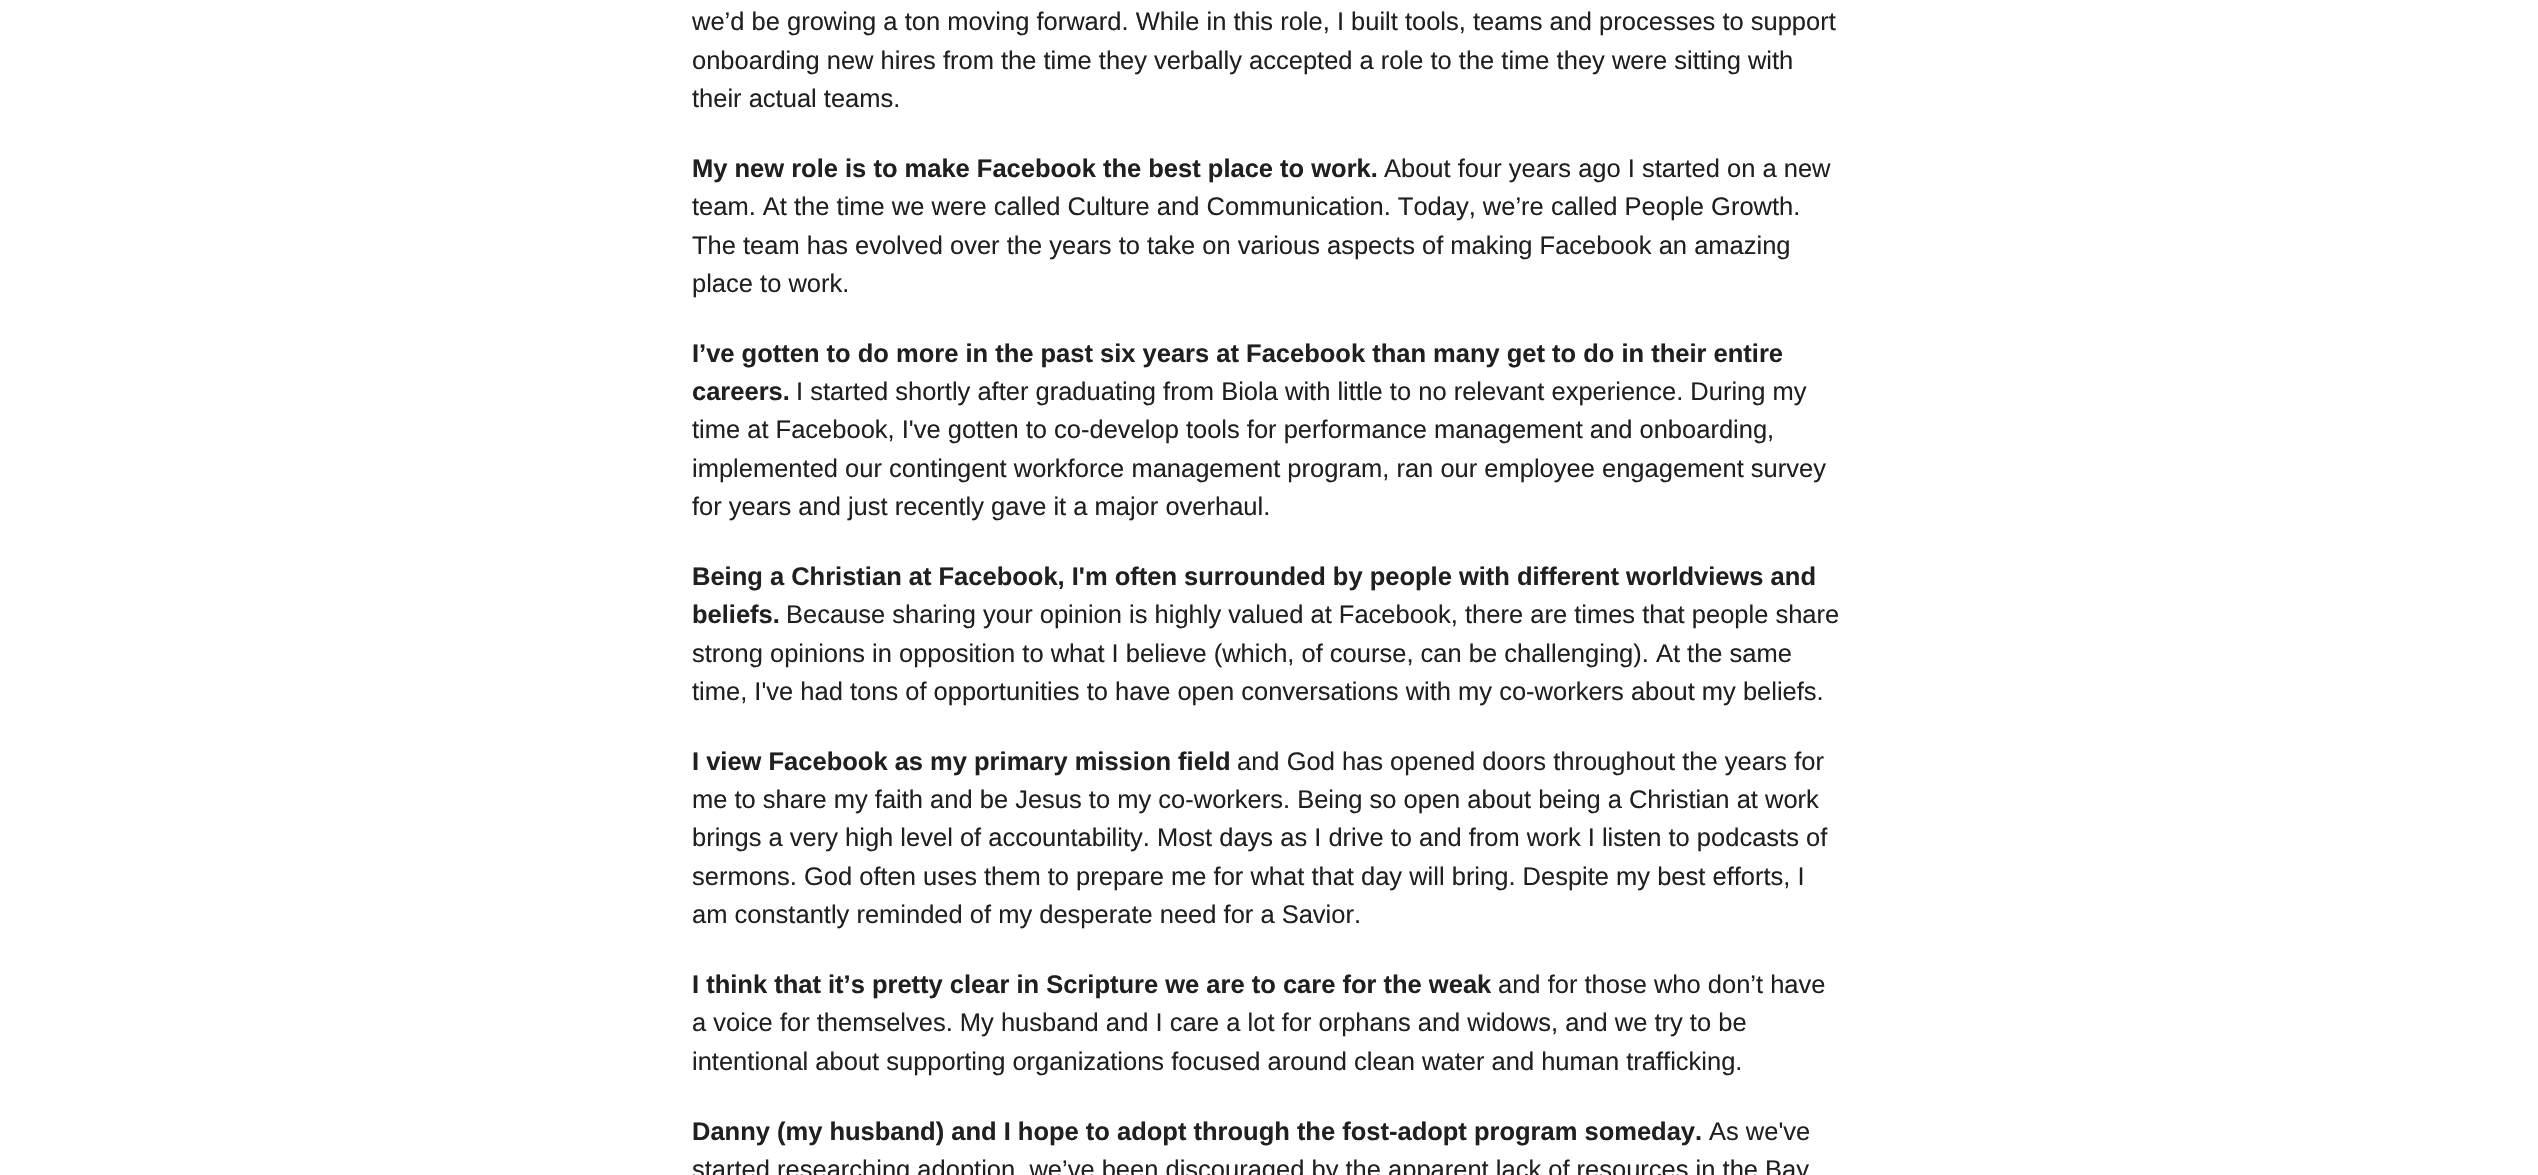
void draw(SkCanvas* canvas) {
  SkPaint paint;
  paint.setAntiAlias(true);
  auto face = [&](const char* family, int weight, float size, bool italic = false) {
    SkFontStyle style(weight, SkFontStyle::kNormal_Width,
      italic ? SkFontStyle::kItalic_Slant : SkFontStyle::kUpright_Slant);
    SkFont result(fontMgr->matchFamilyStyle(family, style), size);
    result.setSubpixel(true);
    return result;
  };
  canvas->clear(0xffffffff);
  auto f0 = face("Liberation Sans", 400, 25.5f);
  paint.setColor(0xff221f1f);
  {
    const struct { const char* s; float x, y; } items[] = {
      {"we’d be growing a ton moving forward. While in this role, I built tools, teams and processes to support", 692, 30},
      {"onboarding new hires from the time they verbally accepted a role to the time they were sitting with", 692, 69},
      {"their actual teams.", 692, 107},
    };
    for (auto [s, x, y] : items) {
      canvas->drawString(s, x, y, f0, paint);
    }
  }
  auto f1 = face("Liberation Sans", 700, 25.5f);
  canvas->drawString("My new role is to make Facebook the best place to work.", 692, 177, f1, paint);
  {
    const struct { const char* s; float x, y; } items[] = {
      {"About four years ago I started on a new", 1384, 177},
      {"team. At the time we were called Culture and Communication. Today, we’re called People Growth.", 692, 215},
      {"The team has evolved over the years to take on various aspects of making Facebook an amazing", 692, 254},
      {"place to work.", 692, 292},
    };
    for (auto [s, x, y] : items) {
      canvas->drawString(s, x, y, f0, paint);
    }
  }
  canvas->drawString("I’ve gotten to do more in the past six years at Facebook than many get to do in their entire", 692, 362, f1, paint);
  canvas->drawString("careers.", 692, 400, f1, paint);
  {
    const struct { const char* s; float x, y; } items[] = {
      {"I started shortly after graduating from Biola with little to no relevant experience. During my", 796, 400},
      {"time at Facebook, I've gotten to co-develop tools for performance management and onboarding,", 692, 438},
      {"implemented our contingent workforce management program, ran our employee engagement survey", 692, 477},
      {"for years and just recently gave it a major overhaul.", 692, 515},
    };
    for (auto [s, x, y] : items) {
      canvas->drawString(s, x, y, f0, paint);
    }
  }
  canvas->drawString("Being a Christian at Facebook, I'm often surrounded by people with different worldviews and", 692, 585, f1, paint);
  canvas->drawString("beliefs.", 692, 623, f1, paint);
  {
    const struct { const char* s; float x, y; } items[] = {
      {"Because sharing your opinion is highly valued at Facebook, there are times that people share", 786, 623},
      {"strong opinions in opposition to what I believe (which, of course, can be challenging). At the same", 692, 662},
      {"time, I've had tons of opportunities to have open conversations with my co-workers about my beliefs.", 692, 700},
    };
    for (auto [s, x, y] : items) {
      canvas->drawString(s, x, y, f0, paint);
    }
  }
  canvas->drawString("I view Facebook as my primary mission field", 692, 770, f1, paint);
  {
    const struct { const char* s; float x, y; } items[] = {
      {"and God has opened doors throughout the years for", 1237, 770},
      {"me to share my faith and be Jesus to my co-workers. Being so open about being a Christian at work", 692, 808},
      {"brings a very high level of accountability. Most days as I drive to and from work I listen to podcasts of", 692, 846},
      {"sermons. God often uses them to prepare me for what that day will bring. Despite my best efforts, I", 692, 885},
      {"am constantly reminded of my desperate need for a Savior.", 692, 923},
    };
    for (auto [s, x, y] : items) {
      canvas->drawString(s, x, y, f0, paint);
    }
  }
  canvas->drawString("I think that it’s pretty clear in Scripture we are to care for the weak", 692, 993, f1, paint);
  {
    const struct { const char* s; float x, y; } items[] = {
      {"and for those who don’t have", 1498, 993},
      {"a voice for themselves. My husband and I care a lot for orphans and widows, and we try to be", 692, 1031},
      {"intentional about supporting organizations focused around clean water and human trafficking.", 692, 1070},
    };
    for (auto [s, x, y] : items) {
      canvas->drawString(s, x, y, f0, paint);
    }
  }
  canvas->drawString("Danny (my husband) and I hope to adopt through the fost-adopt program someday.", 692, 1140, f1, paint);
  canvas->drawString("As we've", 1709, 1140, f0, paint);
  canvas->drawString("started researching adoption, we’ve been discouraged by the apparent lack of resources in the Bay", 692, 1178, f0, paint);
}
